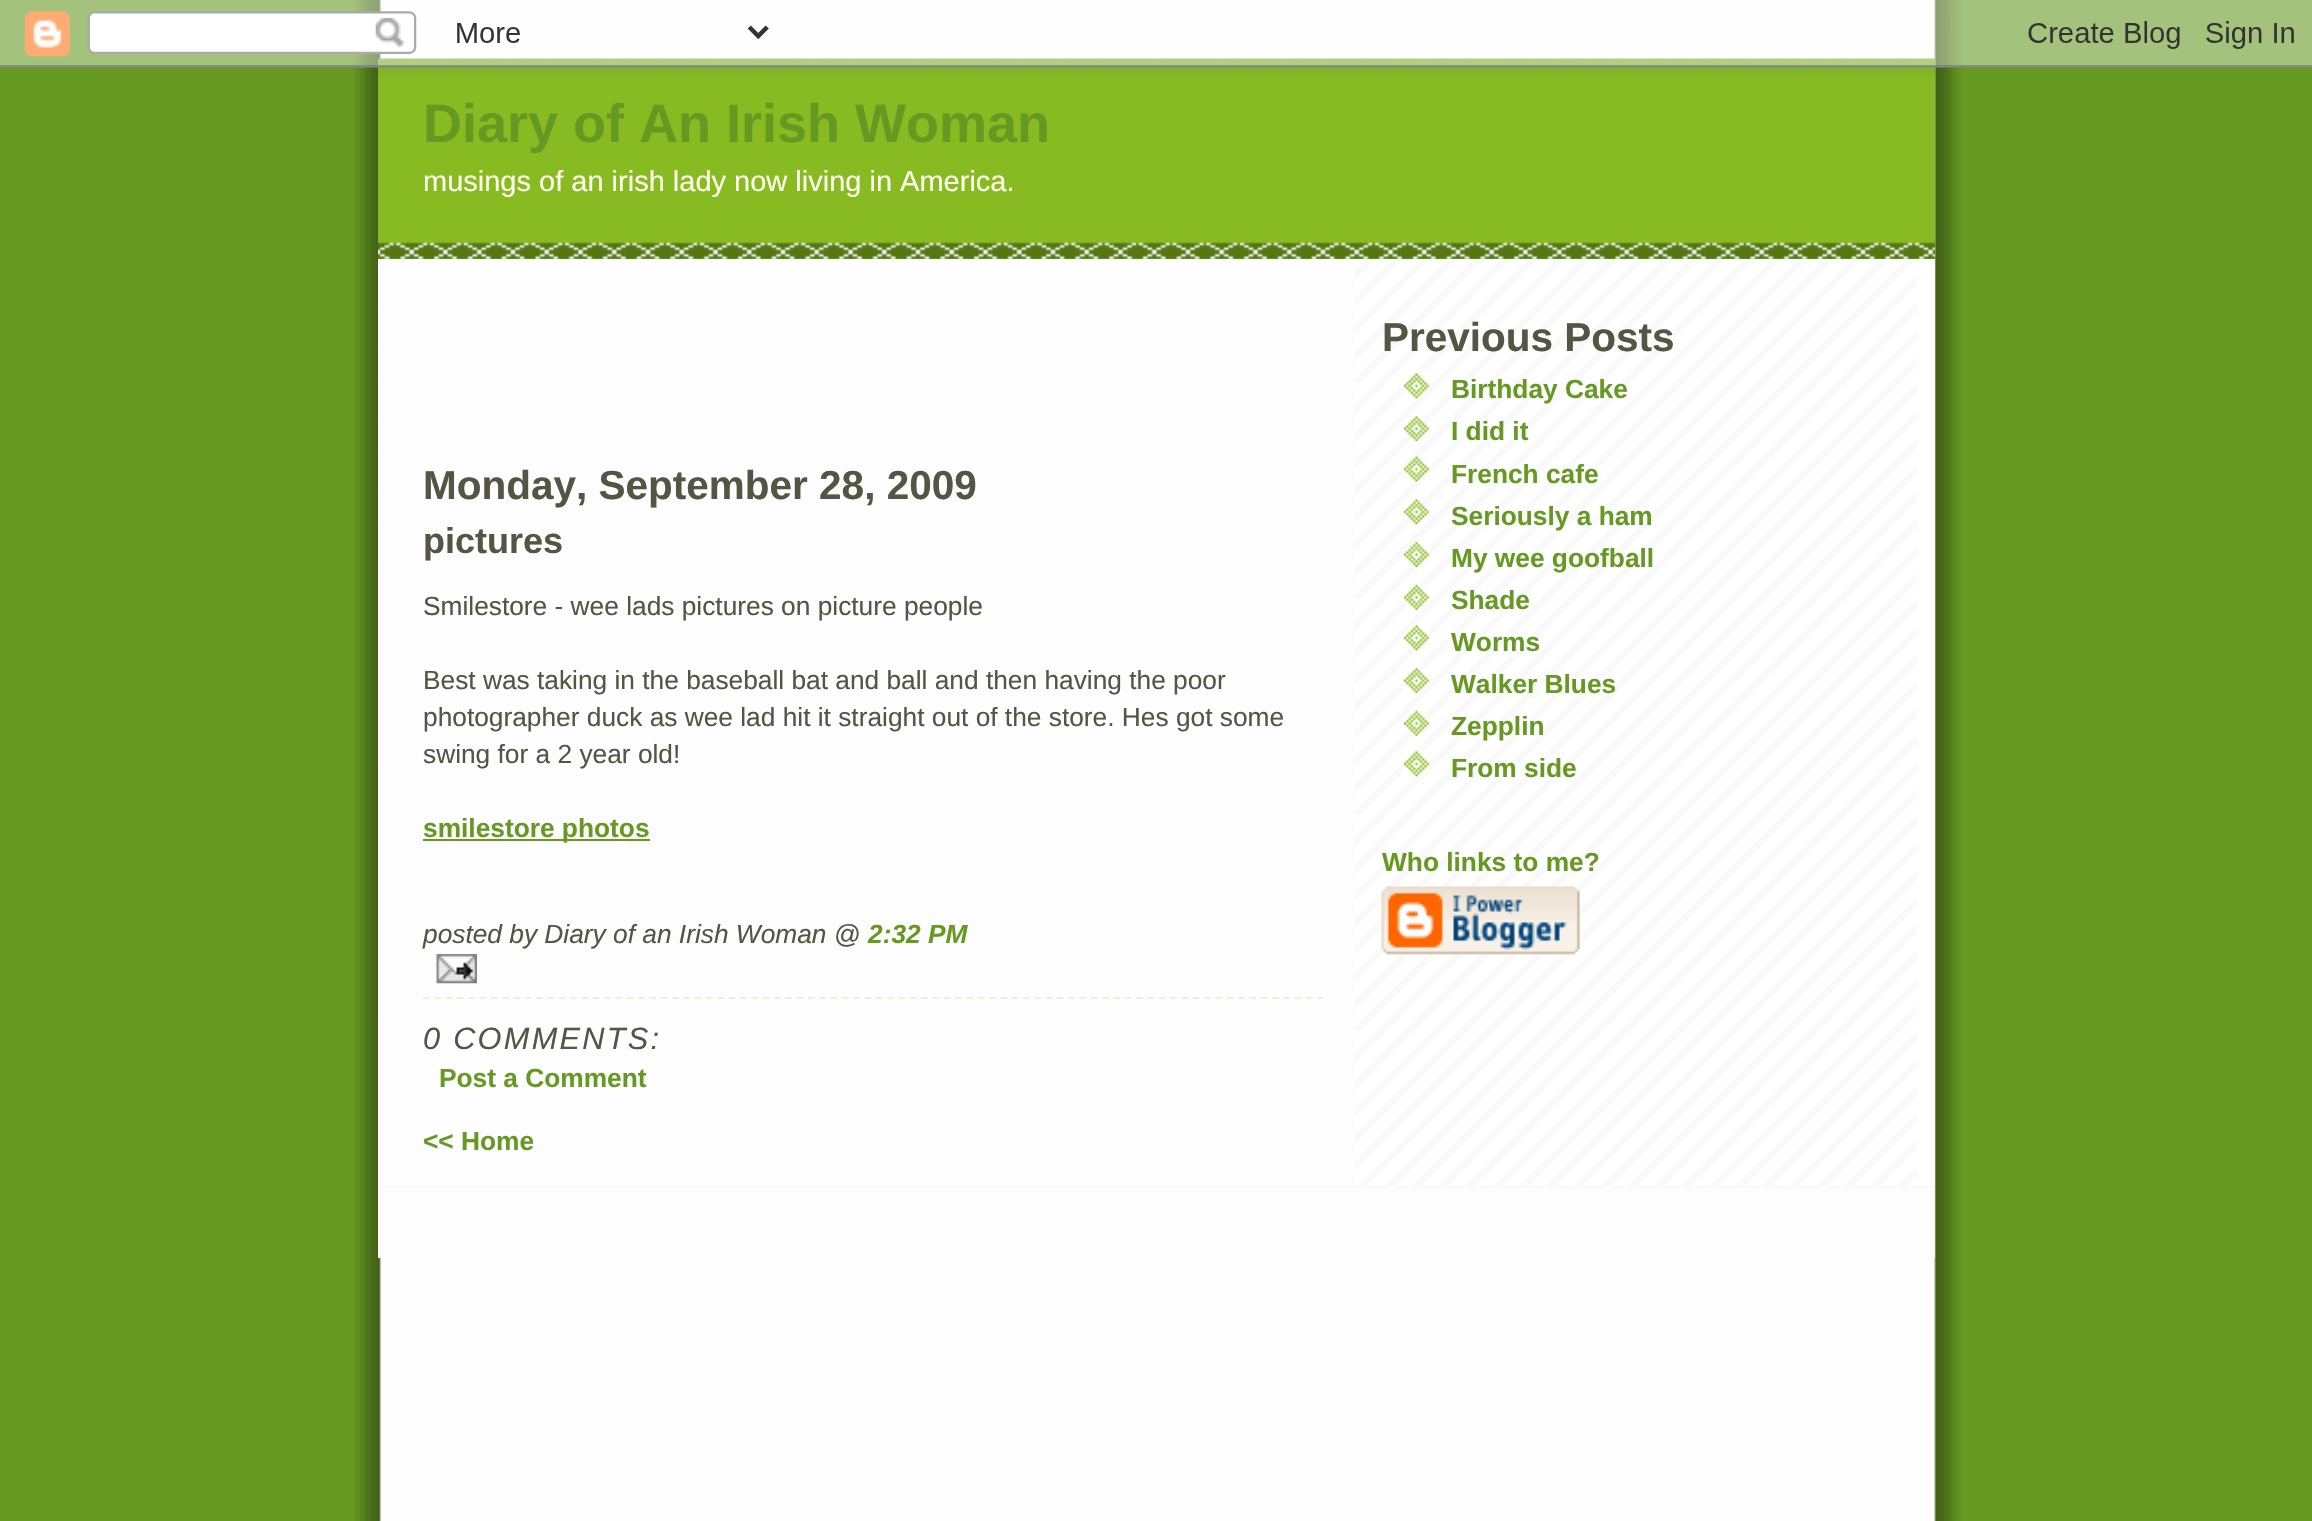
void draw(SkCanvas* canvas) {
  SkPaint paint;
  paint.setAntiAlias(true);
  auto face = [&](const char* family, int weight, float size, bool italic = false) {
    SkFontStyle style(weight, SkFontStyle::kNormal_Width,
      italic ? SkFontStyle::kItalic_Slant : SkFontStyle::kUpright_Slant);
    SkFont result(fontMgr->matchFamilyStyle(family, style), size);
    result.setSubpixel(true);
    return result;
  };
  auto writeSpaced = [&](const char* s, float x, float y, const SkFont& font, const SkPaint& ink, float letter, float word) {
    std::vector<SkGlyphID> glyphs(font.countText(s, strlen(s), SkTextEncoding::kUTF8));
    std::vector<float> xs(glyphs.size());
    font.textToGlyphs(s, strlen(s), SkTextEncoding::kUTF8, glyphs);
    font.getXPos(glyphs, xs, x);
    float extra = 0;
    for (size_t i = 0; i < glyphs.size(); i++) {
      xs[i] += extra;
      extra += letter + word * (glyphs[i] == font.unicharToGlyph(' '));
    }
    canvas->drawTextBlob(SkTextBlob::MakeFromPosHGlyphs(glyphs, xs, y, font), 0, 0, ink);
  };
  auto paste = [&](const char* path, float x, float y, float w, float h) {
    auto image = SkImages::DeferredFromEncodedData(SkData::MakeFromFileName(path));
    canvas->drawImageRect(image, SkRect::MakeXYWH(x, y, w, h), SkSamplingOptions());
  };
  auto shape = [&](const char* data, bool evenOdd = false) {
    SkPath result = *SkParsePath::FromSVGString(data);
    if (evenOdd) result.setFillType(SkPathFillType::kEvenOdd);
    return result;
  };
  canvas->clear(0xff669922);
  paste("img/1.png", 354, 0, 1607, 1521);
  paste("img/3.png", 1355, 58, 580, 1128);
  paste("img/5.png", 378, 58, 1557, 19);
  paste("img/2.png", 0, 0, 2312, 68);
  paint.setColor(0xffffffff);
  canvas->drawRect(SkRect::MakeXYWH(378, 259, 3, 927), paint);
  paint.setColor(0xff88bb22);
  canvas->drawRect(SkRect::MakeXYWH(378, 77, 1557, 182), paint);
  paste("img/4.png", 378, 242, 1557, 17);
  paint.setColor(0xff669922);
  canvas->drawRect(SkRect::MakeXYWH(423, 839, 227, 2), paint);
  paste("img/6.png", 436, 954, 41, 30);
  paint.setStroke(true);
  paint.setStrokeWidth(2.2f);
  paint.setColor(0xffeeeedd);
  paint.setPathEffect(SkDashPathEffect::Make({{6.75f, 4.57f}}, 0));
  canvas->drawPath(shape("M423 998H1323"), paint);
  paint.setPathEffect(nullptr);
  paste("img/7.png", 1404, 373, 26, 26);
  paste("img/8.png", 1404, 415, 26, 26);
  paste("img/9.png", 1404, 456, 26, 26);
  paste("img/10.png", 1404, 499, 26, 26);
  paste("img/11.png", 1404, 541, 26, 26);
  paste("img/12.png", 1404, 584, 26, 26);
  paste("img/13.png", 1404, 625, 26, 26);
  paste("img/14.png", 1404, 667, 26, 26);
  paste("img/15.png", 1404, 710, 26, 26);
  paste("img/16.png", 1404, 751, 26, 26);
  paste("img/17.png", 1381, 886, 199, 69);
  paint.setStroke(false);
  paint.setColor(0xfffdfdfd);
  canvas->drawRect(SkRect::MakeXYWH(378, 1188, 1557, 70), paint);
  paint.setColor(0xfff9f9f9);
  canvas->drawRect(SkRect::MakeXYWH(378, 1186, 1557, 2), paint);
  auto f0 = face("Liberation Sans", 700, 54);
  paint.setColor(0xff669922);
  canvas->drawString("Diary of An Irish Woman", 423, 142, f0, paint);
  auto f1 = face("Liberation Sans", 400, 29);
  paint.setColor(0xffffffee);
  canvas->drawString("musings of an irish lady now living in America.", 423, 191, f1, paint);
  auto f2 = face("Liberation Sans", 700, 40.5f);
  paint.setColor(0xff555544);
  canvas->drawString("Monday, September 28, 2009", 423, 499, f2, paint);
  auto f3 = face("Liberation Sans", 700, 36);
  canvas->drawString("pictures", 423, 553, f3, paint);
  auto f4 = face("Liberation Sans", 400, 26.3f);
  {
    const struct { const char* s; float x, y; } items[] = {
      {"Smilestore - wee lads pictures on picture people", 423, 615},
      {"Best was taking in the baseball bat and ball and then having the poor", 423, 689},
      {"photographer duck as wee lad hit it straight out of the store. Hes got some", 423, 726},
      {"swing for a 2 year old!", 423, 763},
    };
    for (auto [s, x, y] : items) {
      canvas->drawString(s, x, y, f4, paint);
    }
  }
  auto f5 = face("Liberation Sans", 700, 26.3f);
  paint.setColor(0xff669922);
  canvas->drawString("smilestore photos", 423, 837, f5, paint);
  auto f6 = face("Liberation Sans", 400, 26.3f, true);
  paint.setColor(0xff555544);
  canvas->drawString("posted by Diary of an Irish Woman @", 423, 943, f6, paint);
  auto f7 = face("Liberation Sans", 700, 26.3f, true);
  paint.setColor(0xff669922);
  canvas->drawString("2:32 PM", 868, 943, f7, paint);
  auto f8 = face("Liberation Sans", 400, 30.75f, true);
  paint.setColor(0xff555544);
  writeSpaced("0 COMMENTS:", 423, 1049, f8, paint, 2.25f, 0);
  paint.setColor(0xff669922);
  canvas->drawString("Post a Comment", 439, 1087, f5, paint);
  canvas->drawString("<< Home", 423, 1150, f5, paint);
  paint.setColor(0xff555544);
  canvas->drawString("Previous Posts", 1382, 351, f2, paint);
  paint.setColor(0xff669922);
  {
    const struct { const char* s; float x, y; } items[] = {
      {"Birthday Cake", 1451, 398},
      {"I did it", 1451, 440},
      {"French cafe", 1451, 483},
      {"Seriously a ham", 1451, 525},
      {"My wee goofball", 1451, 567},
      {"Shade", 1451, 609},
      {"Worms", 1451, 651},
      {"Walker Blues", 1451, 693},
      {"Zepplin", 1451, 735},
      {"From side", 1451, 777},
      {"Who links to me?", 1382, 871},
    };
    for (auto [s, x, y] : items) {
      canvas->drawString(s, x, y, f5, paint);
    }
  }
}
